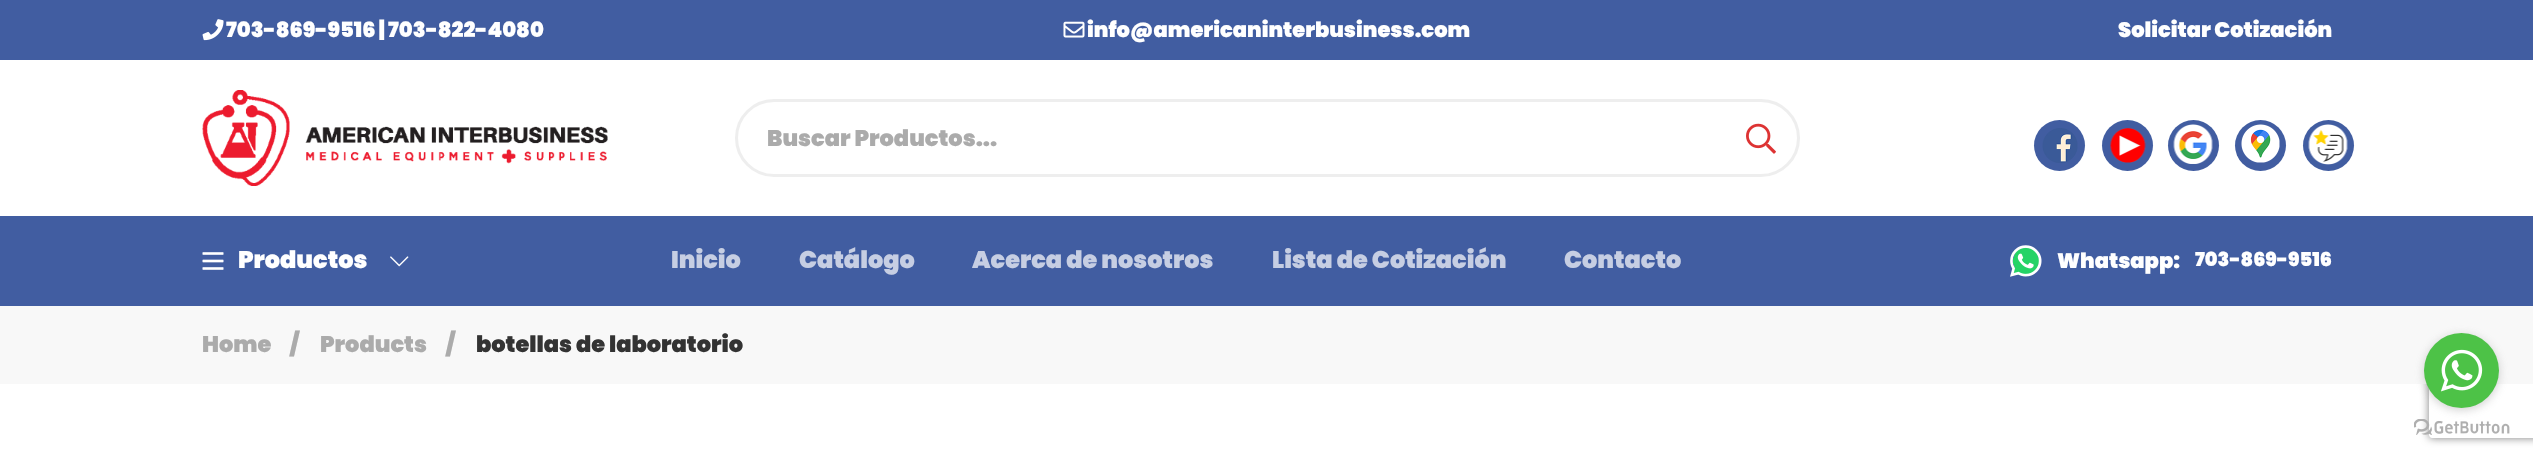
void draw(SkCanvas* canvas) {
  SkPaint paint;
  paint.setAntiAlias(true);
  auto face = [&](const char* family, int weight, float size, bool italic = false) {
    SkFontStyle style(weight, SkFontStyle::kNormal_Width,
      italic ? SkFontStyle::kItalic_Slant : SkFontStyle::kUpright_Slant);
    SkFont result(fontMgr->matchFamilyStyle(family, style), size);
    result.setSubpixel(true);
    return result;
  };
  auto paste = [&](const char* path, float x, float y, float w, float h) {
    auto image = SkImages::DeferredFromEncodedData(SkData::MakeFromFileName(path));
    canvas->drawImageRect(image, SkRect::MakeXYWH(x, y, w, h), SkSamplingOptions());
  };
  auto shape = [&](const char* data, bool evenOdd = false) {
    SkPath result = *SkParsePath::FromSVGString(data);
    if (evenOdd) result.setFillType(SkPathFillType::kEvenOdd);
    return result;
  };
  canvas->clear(0xffffffff);
  paint.setColor(0xff415da1);
  canvas->drawRect(SkRect::MakeXYWH(0, 0, 2533, 60), paint);
  paste("img/1.png", 202, 19, 22, 22);
  paste("img/2.png", 1063, 21, 22, 17);
  paste("img/3.png", 202, 90, 406, 96);
  paint.setStroke(true);
  paint.setStrokeWidth(3);
  paint.setColor(0xffeeeeee);
  canvas->drawRoundRect(SkRect::MakeXYWH(736.5f, 100.5f, 1062, 75), 37.5f, 37.5f, paint);
  paste("img/4.png", 1746, 123, 30, 31);
  paint.setStroke(false);
  paint.setColor(0xff415da1);
  canvas->drawCircle(2059.5f, 145.5f, 25.5f, paint);
  paste("img/5.png", 2042, 128, 36, 35);
  canvas->drawCircle(2127.5f, 145.5f, 25.5f, paint);
  paste("img/6.png", 2110, 128, 36, 35);
  canvas->drawCircle(2193.5f, 145.5f, 25.5f, paint);
  paste("img/7.png", 2173, 124, 40, 40);
  canvas->drawCircle(2260.5f, 145.5f, 25.5f, paint);
  paste("img/8.png", 2241, 124, 39, 39);
  canvas->drawCircle(2328.5f, 145.5f, 25.5f, paint);
  paste("img/9.png", 2308, 124, 40, 41);
  canvas->drawRect(SkRect::MakeXYWH(0, 216, 2533, 90), paint);
  paste("img/10.png", 202, 252, 22, 18);
  paste("img/11.png", 390, 256, 19, 11);
  {
    const SkColor colors[] = {0xff25d366, 0xff415da1};
    const float stops[] = {0.58f, 0.58f};
    SkMatrix m = SkMatrix::Translate(2026, 261).preScale(22, 25);
    paint.setShader(SkGradientShader::MakeRadial({0, 0}, 1, colors, stops, 2, SkTileMode::kClamp, 0, &m));
    paint.setAlpha(255);
  }
  canvas->drawRoundRect(SkRect::MakeXYWH(2010, 243, 32, 36), 16, 16, paint);
  paint.setShader(nullptr);
  paint.setColor(0xff25d366);
  canvas->drawRect(SkRect::MakeXYWH(2013, 269, 6, 6), paint);
  paste("img/12.png", 2010, 245, 32, 32);
  canvas->save();
  canvas->clipPath(shape("M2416 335H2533V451H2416ZM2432 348H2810C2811.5 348 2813 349.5 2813 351V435C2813 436.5 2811.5 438 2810 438H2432C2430.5 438 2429 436.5 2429 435V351C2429 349.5 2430.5 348 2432 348Z", true), true);
  paint.setColor(0xff808080);
  paint.setMaskFilter(SkMaskFilter::MakeBlur(kNormal_SkBlurStyle, 4));
  canvas->drawRoundRect(SkRect::MakeXYWH(2429, 348, 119, 90), 3, 3, paint);
  paint.setMaskFilter(nullptr);
  canvas->restore();
  paint.setColor(0xfff8f8f8);
  canvas->drawRect(SkRect::MakeXYWH(0, 306, 2533, 78), paint);
  paste("img/14.png", 2414, 419, 96, 16);
  paint.setColor(0x66888888);
  paint.setMaskFilter(SkMaskFilter::MakeBlur(kNormal_SkBlurStyle, 5));
  canvas->drawRoundRect(SkRect::MakeXYWH(2424, 335, 75, 75), 37.5f, 37.5f, paint);
  paint.setMaskFilter(nullptr);
  paint.setColor(0xff4dc247);
  canvas->drawCircle(2461.5f, 370.5f, 37.5f, paint);
  paste("img/13.png", 2441, 349, 42, 43);
  auto f0 = face("Poppins", 900, 21);
  paint.setColor(0xffffffff);
  {
    const struct { const char* s; float x, y; } items[] = {
      {"703-869-9516 | 703-822-4080", 226, 37},
      {"info@americaninterbusiness.com", 1087, 37},
      {"Solicitar Cotización", 2118, 37},
    };
    for (auto [s, x, y] : items) {
      canvas->drawString(s, x, y, f0, paint);
    }
  }
  auto f1 = face("Poppins", 900, 22.5f);
  paint.setColor(0xffababab);
  canvas->drawString("Buscar Productos...", 767, 146, f1, paint);
  auto f2 = face("Poppins", 900, 24);
  paint.setColor(0xffffffff);
  canvas->drawString("Productos", 238, 268, f2, paint);
  paint.setColor(0xffc6cee3);
  {
    const struct { const char* s; float x, y; } items[] = {
      {"Inicio", 671, 268},
      {"Catálogo", 799, 268},
      {"Acerca de nosotros", 972, 268},
      {"Lista de Cotización", 1272, 268},
      {"Contacto", 1564, 268},
    };
    for (auto [s, x, y] : items) {
      canvas->drawString(s, x, y, f2, paint);
    }
  }
  paint.setColor(0xffffffff);
  canvas->drawString("Whatsapp:", 2057, 268, f0, paint);
  auto f3 = face("Poppins", 900, 19.25f);
  canvas->drawString("703-869-9516", 2195, 266, f3, paint);
  paint.setColor(0xffababab);
  {
    const struct { const char* s; float x, y; } items[] = {
      {"Home", 202, 352},
      {"/", 290, 352},
      {"Products", 320, 352},
      {"/", 446, 352},
    };
    for (auto [s, x, y] : items) {
      canvas->drawString(s, x, y, f1, paint);
    }
  }
  paint.setColor(0xff333333);
  canvas->drawString("botellas de laboratorio", 476, 352, f1, paint);
}
